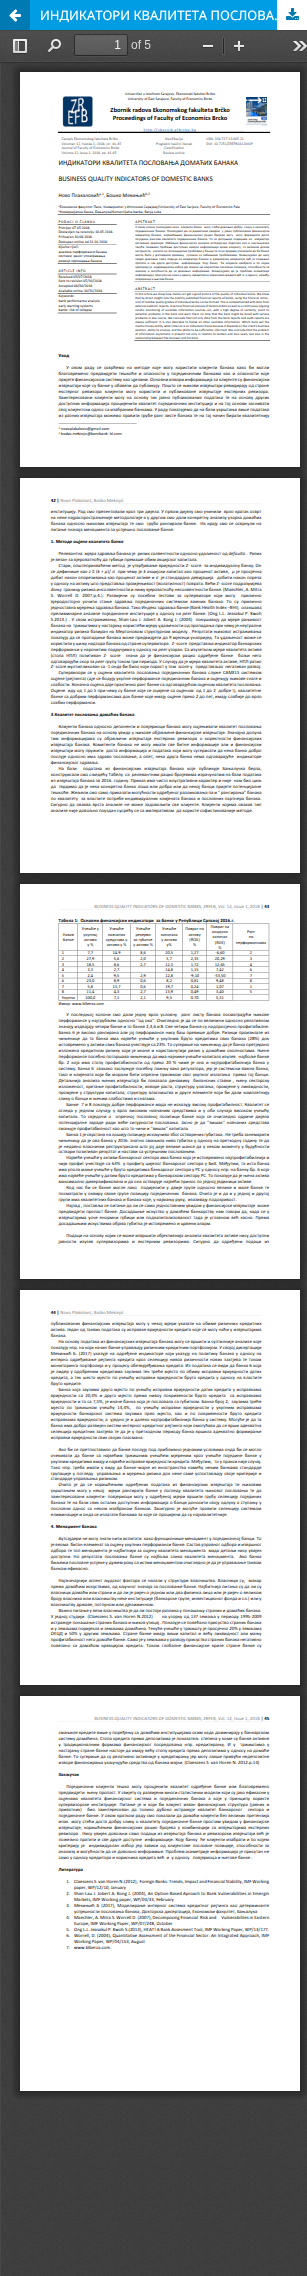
void draw(SkCanvas* canvas) {
  SkPaint paint;
  paint.setAntiAlias(true);
  auto face = [&](const char* family, int weight, float size, bool italic = false) {
    SkFontStyle style(weight, SkFontStyle::kNormal_Width,
      italic ? SkFontStyle::kItalic_Slant : SkFontStyle::kUpright_Slant);
    SkFont result(fontMgr->matchFamilyStyle(family, style), size);
    result.setSubpixel(true);
    return result;
  };
  auto paste = [&](const char* path, float x, float y, float w, float h) {
    auto image = SkImages::DeferredFromEncodedData(SkData::MakeFromFileName(path));
    canvas->drawImageRect(image, SkRect::MakeXYWH(x, y, w, h), SkSamplingOptions());
  };
  canvas->clear(0xffffffff);
  paint.setColor(0xff009de5);
  canvas->drawRect(SkRect::MakeXYWH(30, 0, 247, 30), paint);
  paint.setColor(0xff007ab2);
  canvas->drawRect(SkRect::MakeXYWH(0, 0, 30, 30), paint);
  paste("img/1.png", 9, 9, 12, 13);
  paste("img/2.png", 286, 8, 13, 12);
  paste("img/3.png", 0, 30, 307, 2246);
  auto f0 = face("Noto Sans", 400, 13);
  paint.setColor(0xffffffff);
  canvas->drawString("ИНДИКАТОРИ КВАЛИТЕТА ПОСЛОВА.", 40, 20, f0, paint);
}
